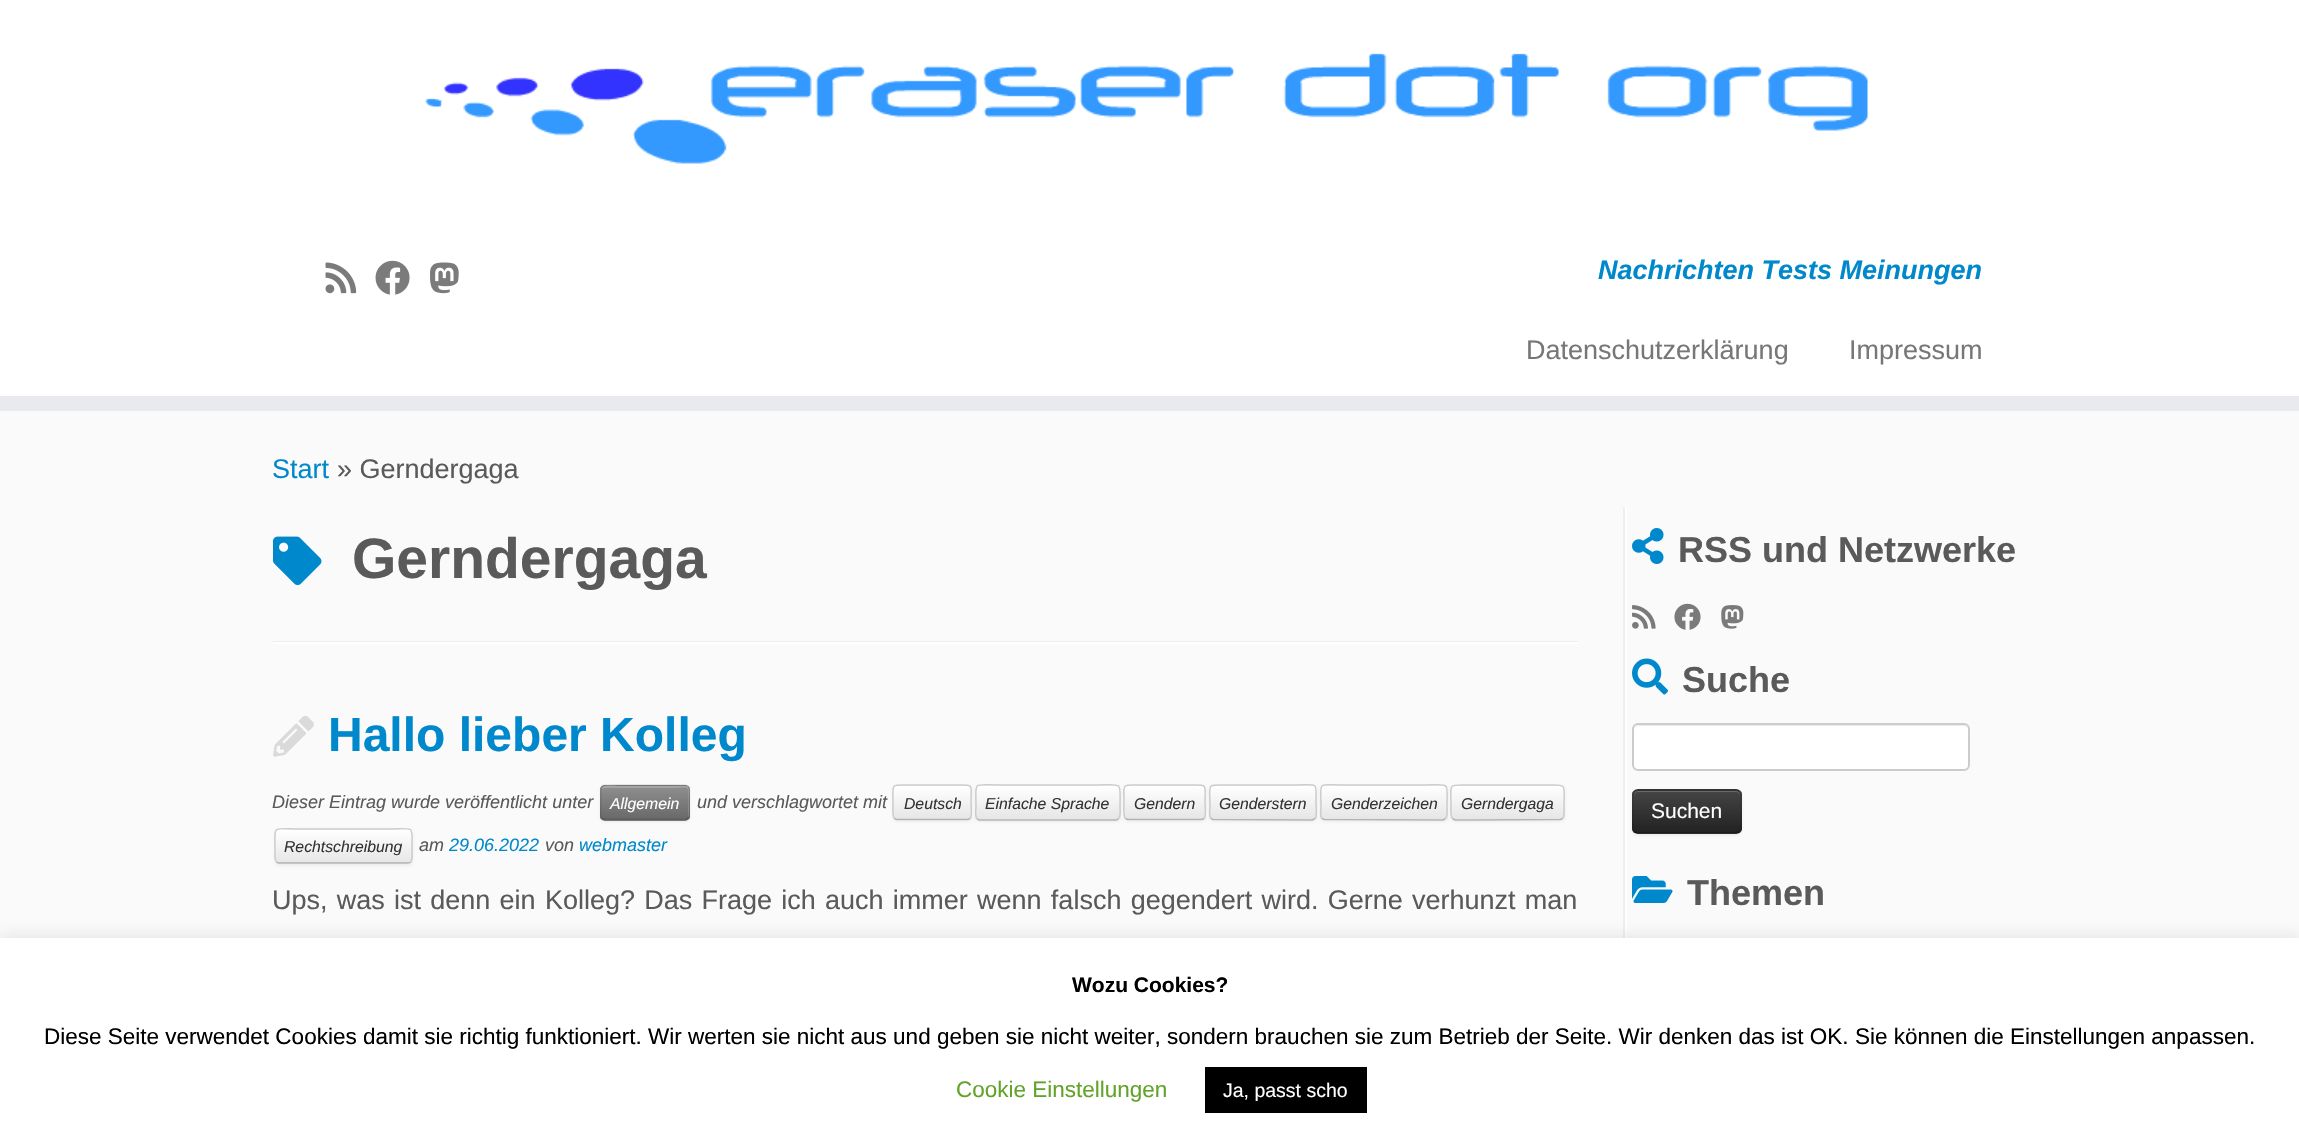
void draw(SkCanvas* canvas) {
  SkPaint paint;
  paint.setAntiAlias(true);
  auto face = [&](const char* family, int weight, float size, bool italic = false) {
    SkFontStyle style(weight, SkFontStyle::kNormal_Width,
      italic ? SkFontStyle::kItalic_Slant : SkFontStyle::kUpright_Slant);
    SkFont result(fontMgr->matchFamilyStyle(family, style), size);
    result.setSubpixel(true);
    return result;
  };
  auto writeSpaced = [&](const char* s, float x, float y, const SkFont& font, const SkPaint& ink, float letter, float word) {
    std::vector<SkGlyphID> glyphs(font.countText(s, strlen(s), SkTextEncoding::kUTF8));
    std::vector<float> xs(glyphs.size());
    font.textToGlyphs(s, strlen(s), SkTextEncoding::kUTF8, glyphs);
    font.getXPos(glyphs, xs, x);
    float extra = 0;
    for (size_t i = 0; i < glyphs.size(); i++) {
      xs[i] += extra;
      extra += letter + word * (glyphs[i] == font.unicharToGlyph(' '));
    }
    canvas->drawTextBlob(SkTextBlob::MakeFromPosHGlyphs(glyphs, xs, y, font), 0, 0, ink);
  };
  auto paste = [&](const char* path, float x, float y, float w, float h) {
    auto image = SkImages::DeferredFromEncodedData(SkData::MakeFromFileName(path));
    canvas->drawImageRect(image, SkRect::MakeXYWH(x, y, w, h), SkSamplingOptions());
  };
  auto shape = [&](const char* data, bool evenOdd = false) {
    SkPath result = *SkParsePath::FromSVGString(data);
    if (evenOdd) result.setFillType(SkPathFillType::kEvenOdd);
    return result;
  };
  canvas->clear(0xfffafafa);
  paint.setColor(0xffffffff);
  canvas->drawRect(SkRect::MakeXYWH(0, 0, 2299, 396), paint);
  paint.setColor(0xffe9eaee);
  canvas->drawRect(SkRect::MakeXYWH(0, 396, 2299, 15), paint);
  paste("img/1.png", 425, 53, 1444, 111);
  paste("img/2.png", 325, 262, 32, 32);
  paste("img/3.png", 375, 260, 35, 35);
  paste("img/4.png", 430, 262, 29, 32);
  paste("img/5.png", 273, 536, 49, 50);
  paint.setColor(0xffeeeeee);
  canvas->drawRect(SkRect::MakeXYWH(273, 641, 1305, 1), paint);
  paint.setColor(0xffffffff);
  canvas->drawRect(SkRect::MakeXYWH(273, 642, 1305, 2), paint);
  paste("img/6.png", 273, 715, 41, 42);
  paint.setColor(0x0d000000);
  paint.setMaskFilter(SkMaskFilter::MakeBlur(kNormal_SkBlurStyle, 1.5f));
  canvas->drawRoundRect(SkRect::MakeXYWH(600, 786, 90, 36), 5, 5, paint);
  paint.setMaskFilter(nullptr);
  paint.setColor(0xff808080);
  canvas->drawRoundRect(SkRect::MakeXYWH(600, 785, 90, 36), 5, 5, paint);
  canvas->save();
  canvas->clipPath(shape("M605 785H685C688 785 690 787 690 790V816C690 819 688 821 685 821H605C602 821 600 819 600 816V790C600 787 602 785 605 785Z"), true);
  {
    const SkColor colors[] = {0xff8f8f8f, 0xff696969};
    const float stops[] = {0, 1};
    const SkPoint ends[] = {{645, 786}, {645, 819}};
    paint.setShader(SkGradientShader::MakeLinear(ends, colors, stops, 2, SkTileMode::kClamp));
    paint.setAlpha(255);
  }
  canvas->drawRect(SkRect::MakeXYWH(600, 786, 90, 33), paint);
  canvas->restore();
  paint.setShader(nullptr);
  paint.setColor(0x33ffffff);
  canvas->drawPath(shape("M604 788H672C690 788 688 784 688 799V818C690 816 689 805 689 802C689 783 693 786 672 786H618C615 786 602 782 602 790C602 789 603 788 604 788Z"), paint);
  paint.setStroke(true);
  paint.setStrokeWidth(1.5f);
  paint.setColor(0x40000000);
  canvas->drawPath(shape("M688 818.5L686 819.5H604L602 818.5"), paint);
  paint.setColor(0x1a000000);
  canvas->drawPath(shape("M602 818.5C599.5 816.5 601 805.5 601 802.5C601 782.5 597.5 785 618 785H672C692.5 785 689 782.5 689 802.5C689 805.5 690.5 816.5 688 818.5"), paint);
  paint.setStroke(false);
  paint.setColor(0x0d000000);
  paint.setMaskFilter(SkMaskFilter::MakeBlur(kNormal_SkBlurStyle, 1.5f));
  canvas->drawRoundRect(SkRect::MakeXYWH(893, 786, 79, 36), 5, 5, paint);
  paint.setMaskFilter(nullptr);
  paint.setColor(0xfff5f5f5);
  canvas->drawRoundRect(SkRect::MakeXYWH(893, 785, 79, 36), 5, 5, paint);
  canvas->save();
  canvas->clipPath(shape("M898 785H967C970 785 972 787 972 790V816C972 819 970 821 967 821H898C895 821 893 819 893 816V790C893 787 895 785 898 785Z"), true);
  {
    const SkColor colors[] = {0xffffffff, 0xffe6e6e6};
    const float stops[] = {0, 1};
    const SkPoint ends[] = {{932, 786}, {932, 819}};
    paint.setShader(SkGradientShader::MakeLinear(ends, colors, stops, 2, SkTileMode::kClamp));
    paint.setAlpha(255);
  }
  canvas->drawRect(SkRect::MakeXYWH(893, 786, 79, 33), paint);
  canvas->restore();
  paint.setShader(nullptr);
  paint.setColor(0x33ffffff);
  canvas->drawPath(shape("M897 788H956C972 788 970 785 970 799V818C972 816 971 805 971 802C971 784 975 786 956 786H909C905 786 894 783 894 790C894 789 895 788 897 788Z"), paint);
  paint.setStroke(true);
  paint.setColor(0xffb3b3b3);
  canvas->drawPath(shape("M970 818.5L968 819.5H896.5L894.5 818.5"), paint);
  paint.setColor(0xffcccccc);
  canvas->drawPath(shape("M894.5 818.5C892 816.5 893 805.5 893 802.5C893 783.5 890 785 909 785H956C974.5 785 971 783.5 971 802.5C971 805.5 972.5 816.5 970 818.5"), paint);
  paint.setStroke(false);
  paint.setColor(0x0d000000);
  paint.setMaskFilter(SkMaskFilter::MakeBlur(kNormal_SkBlurStyle, 1.5f));
  canvas->drawRoundRect(SkRect::MakeXYWH(975, 786, 146, 36), 5, 5, paint);
  paint.setMaskFilter(nullptr);
  paint.setColor(0xfff5f5f5);
  canvas->drawRoundRect(SkRect::MakeXYWH(975, 785, 146, 36), 5, 5, paint);
  canvas->save();
  canvas->clipPath(shape("M980 785H1116C1119 785 1121 787 1121 790V816C1121 819 1119 821 1116 821H980C977 821 975 819 975 816V790C975 787 977 785 980 785Z"), true);
  {
    const SkColor colors[] = {0xffffffff, 0xffe6e6e6};
    const float stops[] = {0, 1};
    const SkPoint ends[] = {{1048, 786}, {1048, 819}};
    paint.setShader(SkGradientShader::MakeLinear(ends, colors, stops, 2, SkTileMode::kClamp));
    paint.setAlpha(255);
  }
  canvas->drawRect(SkRect::MakeXYWH(975, 786, 146, 33), paint);
  canvas->restore();
  paint.setStroke(true);
  paint.setShader(nullptr);
  paint.setColor(0xffb3b3b3);
  canvas->drawPath(shape("M1118.5 818.5C1118 819.5 1117 820 1116 820H979.5C978.5 820 977.5 819.5 977 818.5"), paint);
  paint.setColor(0xffcccccc);
  canvas->drawPath(shape("M977 818.5C974.5 816 976 810 976 807C976 779.5 971.5 785 1002 785H1093C1124 785 1120 779.5 1120 807C1120 810 1121 816 1118.5 818.5"), paint);
  paint.setStroke(false);
  paint.setColor(0x0d000000);
  paint.setMaskFilter(SkMaskFilter::MakeBlur(kNormal_SkBlurStyle, 1.5f));
  canvas->drawRoundRect(SkRect::MakeXYWH(1124, 786, 82, 36), 5, 5, paint);
  paint.setMaskFilter(nullptr);
  paint.setColor(0xfff5f5f5);
  canvas->drawRoundRect(SkRect::MakeXYWH(1124, 785, 82, 36), 5, 5, paint);
  canvas->save();
  canvas->clipPath(shape("M1129 785H1201C1204 785 1206 787 1206 790V816C1206 819 1204 821 1201 821H1129C1126 821 1124 819 1124 816V790C1124 787 1126 785 1129 785Z"), true);
  {
    const SkColor colors[] = {0xffffffff, 0xffe6e6e6};
    const float stops[] = {0, 1};
    const SkPoint ends[] = {{1165, 786}, {1165, 819}};
    paint.setShader(SkGradientShader::MakeLinear(ends, colors, stops, 2, SkTileMode::kClamp));
    paint.setAlpha(255);
  }
  canvas->drawRect(SkRect::MakeXYWH(1124, 786, 82, 33), paint);
  canvas->restore();
  paint.setShader(nullptr);
  paint.setColor(0x33ffffff);
  canvas->drawPath(shape("M1128 788H1190C1206 788 1204 785 1204 799V818C1206 816 1205 805 1205 802C1205 784 1209 786 1190 786H1140C1136 786 1125 783 1125 790C1125 789 1126 788 1128 788Z"), paint);
  paint.setStroke(true);
  paint.setColor(0xffb3b3b3);
  canvas->drawPath(shape("M1204 818.5L1202 819.5H1127.5L1125.5 818.5"), paint);
  paint.setColor(0xffcccccc);
  canvas->drawPath(shape("M1125.5 818.5C1123 816.5 1124 805.5 1124 802.5C1124 783 1121 785 1140 785H1189C1208.5 785 1205 783 1205 802.5C1205 805.5 1206.5 816.5 1204 818.5"), paint);
  paint.setStroke(false);
  paint.setColor(0x0d000000);
  paint.setMaskFilter(SkMaskFilter::MakeBlur(kNormal_SkBlurStyle, 1.5f));
  canvas->drawRoundRect(SkRect::MakeXYWH(1209, 786, 108, 36), 5, 5, paint);
  paint.setMaskFilter(nullptr);
  paint.setColor(0xfff5f5f5);
  canvas->drawRoundRect(SkRect::MakeXYWH(1209, 785, 108, 36), 5, 5, paint);
  canvas->save();
  canvas->clipPath(shape("M1214 785H1312C1315 785 1317 787 1317 790V816C1317 819 1315 821 1312 821H1214C1211 821 1209 819 1209 816V790C1209 787 1211 785 1214 785Z"), true);
  {
    const SkColor colors[] = {0xffffffff, 0xffe6e6e6};
    const float stops[] = {0, 1};
    const SkPoint ends[] = {{1263, 786}, {1263, 819}};
    paint.setShader(SkGradientShader::MakeLinear(ends, colors, stops, 2, SkTileMode::kClamp));
    paint.setAlpha(255);
  }
  canvas->drawRect(SkRect::MakeXYWH(1209, 786, 108, 33), paint);
  canvas->restore();
  paint.setStroke(true);
  paint.setShader(nullptr);
  paint.setColor(0xffb3b3b3);
  canvas->drawPath(shape("M1315 818.5L1312.5 820L1213 819.5L1211 818.5"), paint);
  paint.setColor(0xffcccccc);
  canvas->drawPath(shape("M1211 818.5C1208.5 816 1210 810 1210 807C1210 782 1205 785 1230 785H1296C1319 785 1316 781.5 1316 802.5C1316 805.5 1317.5 816.5 1315 818.5"), paint);
  paint.setStroke(false);
  paint.setColor(0x0d000000);
  paint.setMaskFilter(SkMaskFilter::MakeBlur(kNormal_SkBlurStyle, 1.5f));
  canvas->drawRoundRect(SkRect::MakeXYWH(1320, 786, 128, 36), 5, 5, paint);
  paint.setMaskFilter(nullptr);
  paint.setColor(0xfff5f5f5);
  canvas->drawRoundRect(SkRect::MakeXYWH(1320, 785, 128, 36), 5, 5, paint);
  canvas->save();
  canvas->clipPath(shape("M1325 785H1443C1446 785 1448 787 1448 790V816C1448 819 1446 821 1443 821H1325C1322 821 1320 819 1320 816V790C1320 787 1322 785 1325 785Z"), true);
  {
    const SkColor colors[] = {0xffffffff, 0xffe6e6e6};
    const float stops[] = {0, 1};
    const SkPoint ends[] = {{1384, 786}, {1384, 819}};
    paint.setShader(SkGradientShader::MakeLinear(ends, colors, stops, 2, SkTileMode::kClamp));
    paint.setAlpha(255);
  }
  canvas->drawRect(SkRect::MakeXYWH(1320, 786, 128, 33), paint);
  canvas->restore();
  paint.setStroke(true);
  paint.setShader(nullptr);
  paint.setColor(0xffb3b3b3);
  canvas->drawPath(shape("M1445.5 818.5L1443 820L1324 819.5L1322 818.5"), paint);
  paint.setColor(0xffcccccc);
  canvas->drawPath(shape("M1322 818.5C1319.5 816 1321 810 1321 807C1321 780.5 1316 785 1344 785H1423C1451.5 785 1447 780.5 1447 807C1447 810 1448 816 1445.5 818.5"), paint);
  paint.setStroke(false);
  paint.setColor(0x0d000000);
  paint.setMaskFilter(SkMaskFilter::MakeBlur(kNormal_SkBlurStyle, 1.5f));
  canvas->drawRoundRect(SkRect::MakeXYWH(1451, 786, 114, 36), 5, 5, paint);
  paint.setMaskFilter(nullptr);
  paint.setColor(0xfff5f5f5);
  canvas->drawRoundRect(SkRect::MakeXYWH(1451, 785, 114, 36), 5, 5, paint);
  canvas->save();
  canvas->clipPath(shape("M1456 785H1560C1563 785 1565 787 1565 790V816C1565 819 1563 821 1560 821H1456C1453 821 1451 819 1451 816V790C1451 787 1453 785 1456 785Z"), true);
  {
    const SkColor colors[] = {0xffffffff, 0xffe6e6e6};
    const float stops[] = {0, 1};
    const SkPoint ends[] = {{1508, 786}, {1508, 819}};
    paint.setShader(SkGradientShader::MakeLinear(ends, colors, stops, 2, SkTileMode::kClamp));
    paint.setAlpha(255);
  }
  canvas->drawRect(SkRect::MakeXYWH(1451, 786, 114, 33), paint);
  canvas->restore();
  paint.setStroke(true);
  paint.setShader(nullptr);
  paint.setColor(0xffb3b3b3);
  canvas->drawPath(shape("M1562.5 818.5L1560.5 819.5L1472.5 820H1455L1452.5 818.5"), paint);
  paint.setColor(0xffcccccc);
  canvas->drawPath(shape("M1452.5 818.5C1450 816 1451 810 1451 807C1451 781.5 1446.5 785 1472.5 785H1542.5C1568.5 785 1564 781.5 1564 807C1564 810 1565 816 1562.5 818.5"), paint);
  paint.setStroke(false);
  paint.setColor(0x0d000000);
  paint.setMaskFilter(SkMaskFilter::MakeBlur(kNormal_SkBlurStyle, 1.5f));
  canvas->drawRoundRect(SkRect::MakeXYWH(275, 830, 138, 36), 5, 5, paint);
  paint.setMaskFilter(nullptr);
  paint.setColor(0xfff5f5f5);
  canvas->drawRoundRect(SkRect::MakeXYWH(275, 828, 138, 36), 5, 5, paint);
  canvas->save();
  canvas->clipPath(shape("M280 828H408C411 828 413 830 413 833V859C413 862 411 864 408 864H280C277 864 275 862 275 859V833C275 830 277 828 280 828Z"), true);
  {
    const SkColor colors[] = {0xffffffff, 0xffe6e6e6};
    const float stops[] = {0, 1};
    const SkPoint ends[] = {{344, 830}, {344, 863}};
    paint.setShader(SkGradientShader::MakeLinear(ends, colors, stops, 2, SkTileMode::kClamp));
    paint.setAlpha(255);
  }
  canvas->drawRect(SkRect::MakeXYWH(275, 830, 138, 33), paint);
  canvas->restore();
  paint.setStroke(true);
  paint.setShader(nullptr);
  paint.setColor(0xffb3b3b3);
  canvas->drawPath(shape("M410.5 862C410 863 409 863 408 863H279C278 863 277 863 276.5 862"), paint);
  paint.setColor(0xffcccccc);
  canvas->drawPath(shape("M276.5 862C274 859.5 275 853.5 275 850.5C275 823.5 271 829 300.5 829H386.5C416 829 412 823.5 412 850.5C412 853.5 413 859.5 410.5 862"), paint);
  paint.setStroke(false);
  paint.setColor(0xffeeeeee);
  canvas->drawRect(SkRect::MakeXYWH(1623, 507, 2, 431), paint);
  paint.setColor(0x0d000000);
  paint.setMaskFilter(SkMaskFilter::MakeBlur(kNormal_SkBlurStyle, 1.5f));
  canvas->drawRoundRect(SkRect::MakeXYWH(1632, 791, 110, 45), 6, 6, paint);
  paint.setMaskFilter(nullptr);
  paint.setColor(0xffffffff);
  canvas->drawRect(SkRect::MakeXYWH(1625, 507, 2, 431), paint);
  paste("img/7.png", 1632, 528, 32, 36);
  paste("img/8.png", 1632, 605, 24, 24);
  paste("img/9.png", 1674, 603, 27, 27);
  paste("img/10.png", 1721, 605, 23, 24);
  paste("img/11.png", 1632, 658, 36, 37);
  canvas->drawRoundRect(SkRect::MakeXYWH(1632, 723, 338, 48), 6, 6, paint);
  paint.setColor(0xffececec);
  canvas->drawPath(shape("M1638 726H1964C1966 726 1968 728 1968 730C1968 727 1966 725 1963 725H1639C1636 725 1634 727 1634 730C1634 728 1636 726 1638 726Z"), paint);
  paint.setStroke(true);
  paint.setStrokeWidth(2);
  paint.setColor(0xffcccccc);
  canvas->drawRoundRect(SkRect::MakeXYWH(1633, 724, 336, 46), 5, 5, paint);
  paint.setStroke(false);
  paint.setColor(0xff363636);
  canvas->drawRoundRect(SkRect::MakeXYWH(1632, 789, 110, 45), 6, 6, paint);
  canvas->save();
  canvas->clipPath(shape("M1638 789H1736C1739.5 789 1742 791.5 1742 795V828C1742 831.5 1739.5 834 1736 834H1638C1634.5 834 1632 831.5 1632 828V795C1632 791.5 1634.5 789 1638 789Z"), true);
  {
    const SkColor colors[] = {0xff444444, 0xff222222};
    const float stops[] = {0, 1};
    const SkPoint ends[] = {{1687, 791}, {1687, 833}};
    paint.setShader(SkGradientShader::MakeLinear(ends, colors, stops, 2, SkTileMode::kClamp));
    paint.setAlpha(255);
  }
  canvas->drawRect(SkRect::MakeXYWH(1632, 791, 110, 42), paint);
  canvas->restore();
  paint.setShader(nullptr);
  paint.setColor(0xff696969);
  canvas->drawPath(shape("M1638 792H1736C1738 792 1740 794 1740 796C1740 793 1738 791 1735 791H1639C1636 791 1634 793 1634 796C1634 794 1636 792 1638 792Z"), paint);
  paint.setStroke(true);
  paint.setStrokeWidth(1.5f);
  paint.setColor(0x40000000);
  canvas->drawPath(shape("M1739 831.5L1736 833H1637.5L1634.5 831.5"), paint);
  paint.setColor(0x1a000000);
  canvas->drawPath(shape("M1634.5 831.5C1632 829.5 1633 825.5 1633 822.5V811.5C1633 787 1629 790 1654 790H1719C1744.5 790 1741 787 1741 811.5V822.5C1741 825.5 1741.5 829.5 1739 831.5"), paint);
  paste("img/12.png", 1632, 876, 41, 27);
  paint.setStroke(false);
  paint.setColor(0x4dacabab);
  paint.setMaskFilter(SkMaskFilter::MakeBlur(kNormal_SkBlurStyle, 7.5f));
  canvas->drawRect(SkRect::MakeXYWH(0, 936, 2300, 201), paint);
  paint.setMaskFilter(nullptr);
  paint.setColor(0xffffffff);
  canvas->drawRect(SkRect::MakeXYWH(0, 938, 2299, 200), paint);
  paint.setColor(0xff000000);
  canvas->drawRect(SkRect::MakeXYWH(1205, 1067, 162, 46), paint);
  auto f0 = face("Liberation Sans", 700, 27, true);
  paint.setColor(0xff0088cc);
  canvas->drawString("Nachrichten Tests Meinungen", 1598, 279, f0, paint);
  auto f1 = face("Liberation Sans", 400, 27);
  paint.setColor(0xff777777);
  canvas->drawString("Datenschutzerklärung", 1526, 359, f1, paint);
  canvas->drawString("Impressum", 1849, 359, f1, paint);
  paint.setColor(0xff0088cc);
  canvas->drawString("Start", 272, 478, f1, paint);
  paint.setColor(0xff5a5a5a);
  canvas->drawString("» Gerndergaga", 337, 478, f1, paint);
  auto f2 = face("Liberation Sans", 700, 57);
  canvas->drawString("Gerndergaga", 352, 578, f2, paint);
  auto f3 = face("Liberation Sans", 700, 48);
  paint.setColor(0xff0088cc);
  canvas->drawString("Hallo lieber Kolleg", 328, 751, f3, paint);
  auto f4 = face("Liberation Sans", 400, 18, true);
  paint.setColor(0xff5a5a5a);
  canvas->drawString("Dieser Eintrag wurde veröffentlicht unter", 272, 808, f4, paint);
  auto f5 = face("Liberation Sans", 400, 15.75f, true);
  paint.setColor(0xffffffff);
  canvas->drawString("Allgemein", 610, 809, f5, paint);
  paint.setColor(0xff5a5a5a);
  canvas->drawString("und verschlagwortet mit", 697, 808, f4, paint);
  paint.setColor(0xff333333);
  {
    const struct { const char* s; float x, y; } items[] = {
      {"Deutsch", 904, 809},
      {"Einfache Sprache", 985, 809},
      {"Gendern", 1134, 809},
      {"Genderstern", 1219, 809},
      {"Genderzeichen", 1331, 809},
      {"Gerndergaga", 1461, 809},
      {"Rechtschreibung", 284, 852},
    };
    for (auto [s, x, y] : items) {
      canvas->drawString(s, x, y, f5, paint);
    }
  }
  paint.setColor(0xff5a5a5a);
  canvas->drawString("am", 419, 851, f4, paint);
  paint.setColor(0xff0088cc);
  canvas->drawString("29.06.2022", 449, 851, f4, paint);
  paint.setColor(0xff5a5a5a);
  canvas->drawString("von", 545, 851, f4, paint);
  paint.setColor(0xff0088cc);
  canvas->drawString("webmaster", 579, 851, f4, paint);
  paint.setColor(0xff5a5a5a);
  writeSpaced("Ups, was ist denn ein Kolleg? Das Frage ich auch immer wenn falsch gegendert wird. Gerne verhunzt man", 272, 909, f1, paint, 0, 1.75f);
  auto f6 = face("Liberation Sans", 700, 36);
  canvas->drawString("RSS und Netzwerke", 1678, 562, f6, paint);
  canvas->drawString("Suche", 1682, 692, f6, paint);
  auto f7 = face("Liberation Sans", 400, 21);
  paint.setColor(0xffffffff);
  canvas->drawString("Suchen", 1651, 818, f7, paint);
  paint.setColor(0xff5a5a5a);
  canvas->drawString("Themen", 1687, 905, f6, paint);
  auto f8 = face("Liberation Sans", 700, 21);
  paint.setColor(0xff000000);
  canvas->drawString("Wozu Cookies?", 1072, 992, f8, paint);
  auto f9 = face("Liberation Sans", 400, 22.5f);
  canvas->drawString("Diese Seite verwendet Cookies damit sie richtig funktioniert. Wir werten sie nicht aus und geben sie nicht weiter, sondern brauchen sie zum Betrieb der Seite. Wir denken das ist OK. Sie können die Einstellungen anpassen.", 44, 1044, f9, paint);
  paint.setColor(0xff62a329);
  canvas->drawString("Cookie Einstellungen", 956, 1097, f9, paint);
  auto f10 = face("Liberation Sans", 400, 19.5f);
  paint.setColor(0xffffffff);
  canvas->drawString("Ja, passt scho", 1223, 1097, f10, paint);
}
